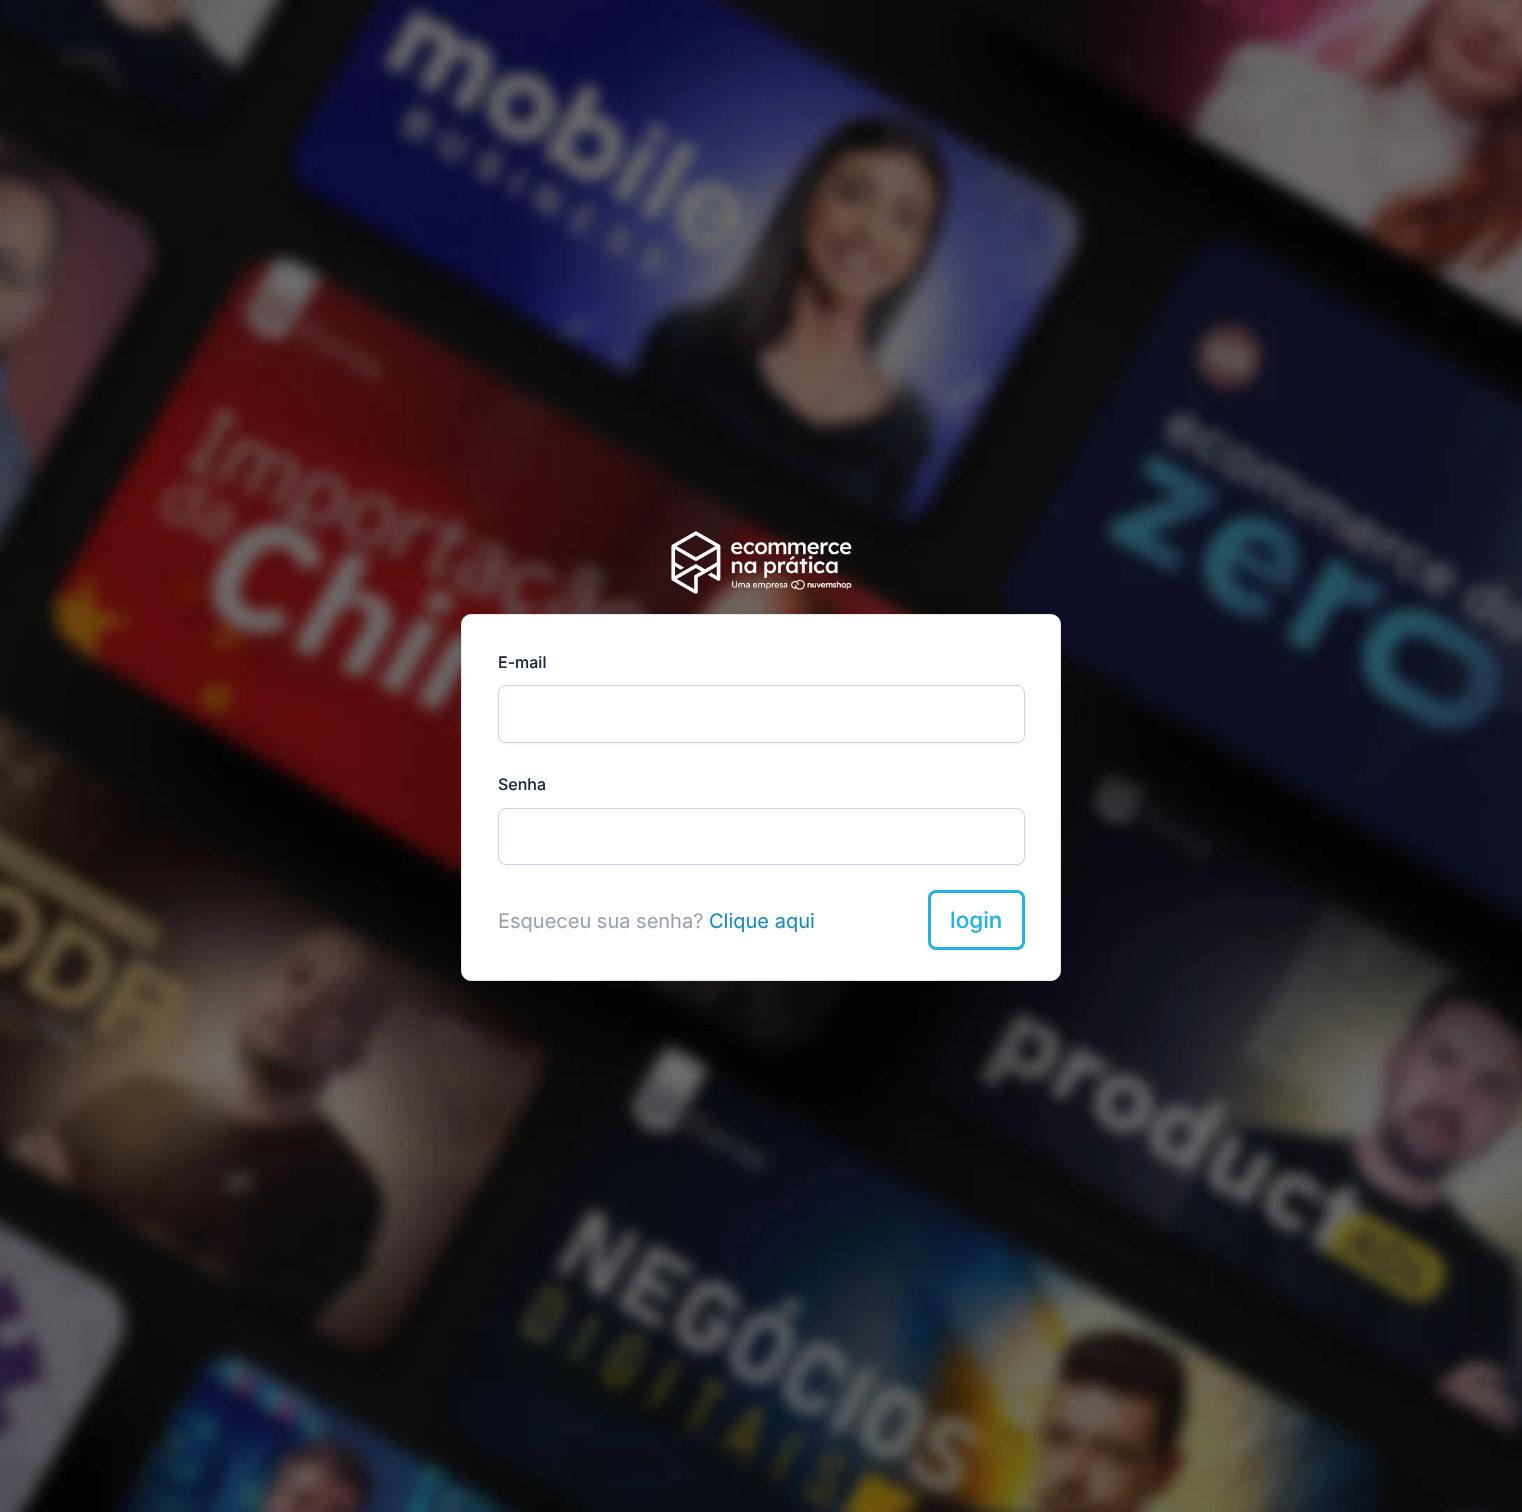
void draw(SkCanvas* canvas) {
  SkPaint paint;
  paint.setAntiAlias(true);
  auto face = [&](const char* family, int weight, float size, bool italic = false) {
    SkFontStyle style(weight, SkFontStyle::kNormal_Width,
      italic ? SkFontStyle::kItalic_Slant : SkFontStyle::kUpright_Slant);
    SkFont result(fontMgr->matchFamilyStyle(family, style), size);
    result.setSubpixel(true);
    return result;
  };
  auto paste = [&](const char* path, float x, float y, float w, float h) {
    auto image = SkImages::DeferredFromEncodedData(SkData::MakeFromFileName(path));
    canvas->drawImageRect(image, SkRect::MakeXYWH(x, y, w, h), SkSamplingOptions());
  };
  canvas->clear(0xffffffff);
  paste("img/1.png", 0, 0, 1522, 1512);
  paste("img/2.png", 671, 531, 181, 63);
  paint.setColor(0xffffffff);
  canvas->drawRoundRect(SkRect::MakeXYWH(461.5f, 614.5f, 599, 366), 9.5f, 9.5f, paint);
  paint.setStroke(true);
  paint.setStrokeWidth(1);
  paint.setColor(0xffe5e7eb);
  canvas->drawRoundRect(SkRect::MakeXYWH(461.5f, 614.5f, 599, 366), 9.5f, 9.5f, paint);
  paint.setStroke(false);
  paint.setColor(0x0d000000);
  paint.setMaskFilter(SkMaskFilter::MakeBlur(kNormal_SkBlurStyle, 1));
  canvas->drawRoundRect(SkRect::MakeXYWH(498, 686, 527, 58), 8, 8, paint);
  paint.setMaskFilter(nullptr);
  paint.setColor(0xffffffff);
  canvas->drawRoundRect(SkRect::MakeXYWH(498.5f, 685.5f, 526, 57), 7.5f, 7.5f, paint);
  paint.setStroke(true);
  paint.setColor(0xffcbd5e1);
  canvas->drawRoundRect(SkRect::MakeXYWH(498.5f, 685.5f, 526, 57), 7.5f, 7.5f, paint);
  paint.setStroke(false);
  paint.setColor(0x0d000000);
  paint.setMaskFilter(SkMaskFilter::MakeBlur(kNormal_SkBlurStyle, 1));
  canvas->drawRoundRect(SkRect::MakeXYWH(498, 809, 527, 57), 8, 8, paint);
  paint.setMaskFilter(nullptr);
  paint.setColor(0xffffffff);
  canvas->drawRoundRect(SkRect::MakeXYWH(498.5f, 808.5f, 526, 56), 7.5f, 7.5f, paint);
  paint.setStroke(true);
  paint.setColor(0xffcbd5e1);
  canvas->drawRoundRect(SkRect::MakeXYWH(498.5f, 808.5f, 526, 56), 7.5f, 7.5f, paint);
  paint.setStrokeWidth(3);
  paint.setColor(0xff20b2e8);
  canvas->drawRoundRect(SkRect::MakeXYWH(929.5f, 891.5f, 94, 57), 6.5f, 6.5f, paint);
  auto f0 = face("Inter", 500, 16);
  paint.setStroke(false);
  paint.setColor(0xff1e293b);
  canvas->drawString("E-mail", 498, 668, f0, paint);
  canvas->drawString("Senha", 498, 790, f0, paint);
  auto f1 = face("Inter", 400, 20);
  paint.setColor(0xff9ca3af);
  canvas->drawString("Esqueceu sua senha?", 498, 928, f1, paint);
  paint.setColor(0xff1a8dbe);
  canvas->drawString("Clique aqui", 709, 928, f1, paint);
  auto f2 = face("Inter", 500, 22.5f);
  paint.setColor(0xff20b2e8);
  canvas->drawString("login", 950, 928, f2, paint);
}
